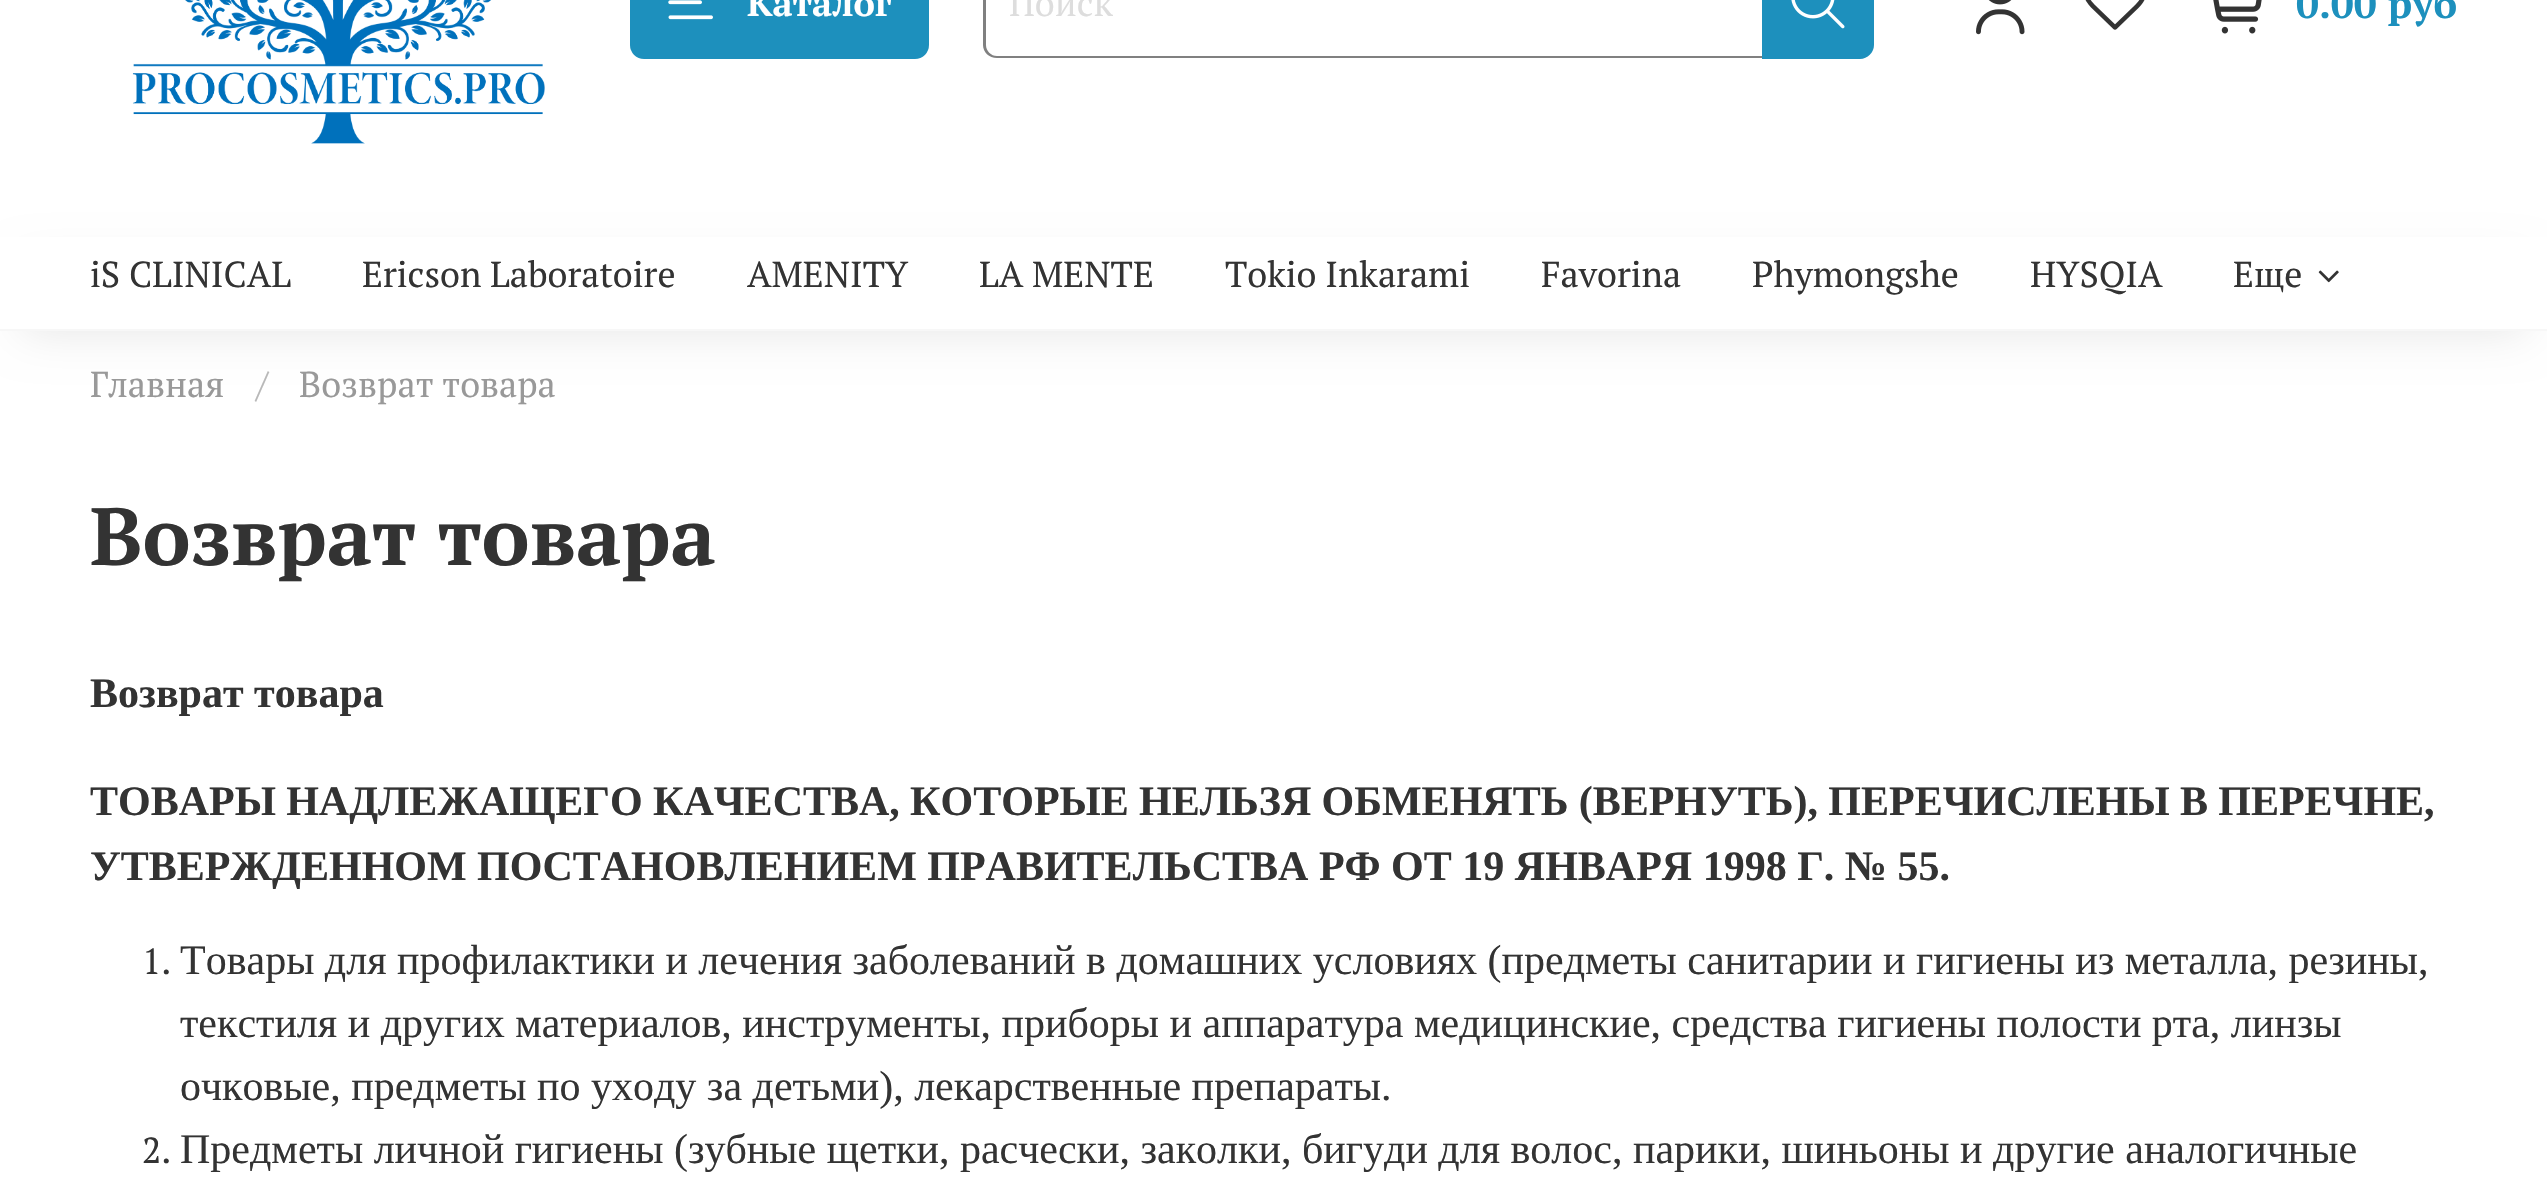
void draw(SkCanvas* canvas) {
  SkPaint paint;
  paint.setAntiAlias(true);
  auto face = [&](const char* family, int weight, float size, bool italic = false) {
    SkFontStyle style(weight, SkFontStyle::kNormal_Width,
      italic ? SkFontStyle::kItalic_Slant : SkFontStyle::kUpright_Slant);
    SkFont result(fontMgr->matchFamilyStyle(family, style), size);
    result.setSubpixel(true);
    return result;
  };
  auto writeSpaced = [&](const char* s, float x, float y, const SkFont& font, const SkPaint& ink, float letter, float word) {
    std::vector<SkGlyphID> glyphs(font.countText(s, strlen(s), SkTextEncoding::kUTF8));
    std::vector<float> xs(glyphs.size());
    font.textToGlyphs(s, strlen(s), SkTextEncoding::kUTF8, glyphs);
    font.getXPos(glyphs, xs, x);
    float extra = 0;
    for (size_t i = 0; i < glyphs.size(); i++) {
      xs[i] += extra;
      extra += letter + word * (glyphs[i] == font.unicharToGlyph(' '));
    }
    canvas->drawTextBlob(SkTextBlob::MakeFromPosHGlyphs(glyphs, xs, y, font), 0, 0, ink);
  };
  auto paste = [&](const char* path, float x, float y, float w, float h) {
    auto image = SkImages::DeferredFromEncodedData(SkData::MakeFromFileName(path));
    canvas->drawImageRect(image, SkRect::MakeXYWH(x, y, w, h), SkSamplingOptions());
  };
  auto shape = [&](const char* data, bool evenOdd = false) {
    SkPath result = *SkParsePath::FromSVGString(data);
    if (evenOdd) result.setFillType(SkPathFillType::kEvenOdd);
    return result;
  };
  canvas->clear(0xffffffff);
  paste("img/1.png", 132, 0, 413, 144);
  paint.setColor(0xff1d90bd);
  canvas->drawRoundRect(SkRect::MakeXYWH(630, -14, 299, 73), 14, 14, paint);
  paste("img/2.png", 668, 0, 45, 20);
  paint.setColor(0xff808080);
  canvas->drawPath(shape("M997-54H1762V58H997C989 58 983 52 983 45V-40C983-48 989-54 997-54ZM997-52H1762V56H997C991 56 986 51 986 45V-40C986-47 991-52 997-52Z", true), paint);
  paint.setColor(0xff1d90bd);
  canvas->drawPath(shape("M1762-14H1860C1867.5-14 1874-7.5 1874 0V45C1874 52.5 1867.5 59 1860 59H1762Z"), paint);
  paste("img/3.png", 1791, 0, 54, 29);
  paste("img/4.png", 1976, 0, 49, 35);
  paste("img/5.png", 2085, 0, 60, 30);
  paste("img/6.png", 2213, 0, 49, 34);
  paint.setColor(0x1a000000);
  paint.setMaskFilter(SkMaskFilter::MakeBlur(kNormal_SkBlurStyle, 22.5f));
  canvas->drawRect(SkRect::MakeXYWH(23, 266, 2502, 65), paint);
  paint.setMaskFilter(nullptr);
  paint.setColor(0xffffffff);
  canvas->drawRect(SkRect::MakeXYWH(0, 237, 2547, 92), paint);
  paint.setColor(0xfff7f7f7);
  canvas->drawRect(SkRect::MakeXYWH(0, 329, 2547, 2), paint);
  paste("img/7.png", 2318, 270, 21, 13);
  auto f0 = face("PT Serif", 700, 36);
  paint.setColor(0xffffffff);
  canvas->drawString("Каталог", 747, 16, f0, paint);
  auto f1 = face("PT Serif", 400, 36);
  paint.setColor(0xffdddddd);
  canvas->drawString("Поиск", 1009, 16, f1, paint);
  auto f2 = face("PT Serif", 700, 40.5f);
  paint.setColor(0xff1d90bd);
  canvas->drawString("0.00 руб", 2296, 18, f2, paint);
  paint.setColor(0xff333333);
  {
    const struct { const char* s; float x, y; } items[] = {
      {"iS CLINICAL", 90, 287},
      {"Ericson Laboratoire", 362, 287},
      {"AMENITY", 747, 287},
      {"LA MENTE", 979, 287},
      {"Tokio Inkarami", 1225, 287},
      {"Favorina", 1541, 287},
      {"Phymongshe", 1752, 287},
      {"HYSQIA", 2030, 287},
      {"Еще", 2233, 287},
    };
    for (auto [s, x, y] : items) {
      canvas->drawString(s, x, y, f1, paint);
    }
  }
  paint.setColor(0xff999999);
  canvas->drawString("Главная", 90, 397, f1, paint);
  paint.setColor(0xffb8b8b8);
  canvas->drawString("/", 256, 397, f1, paint);
  paint.setColor(0xff999999);
  canvas->drawString("Возврат товара", 299, 397, f1, paint);
  auto f3 = face("PT Serif", 700, 81);
  paint.setColor(0xff333333);
  canvas->drawString("Возврат товара", 90, 565, f3, paint);
  auto f4 = face("Liberation Serif", 700, 42);
  canvas->drawString("Возврат товара", 90, 707, f4, paint);
  writeSpaced("ТОВАРЫ НАДЛЕЖАЩЕГО КАЧЕСТВА, КОТОРЫЕ НЕЛЬЗЯ ОБМЕНЯТЬ (ВЕРНУТЬ), ПЕРЕЧИСЛЕНЫ В ПЕРЕЧНЕ,", 90, 815, f4, paint, 0, -0.25f);
  canvas->drawString("УТВЕРЖДЕННОМ ПОСТАНОВЛЕНИЕМ ПРАВИТЕЛЬСТВА РФ ОТ 19 ЯНВАРЯ 1998 Г. № 55.", 90, 880, f4, paint);
  canvas->drawString("1.", 142, 974, f1, paint);
  auto f5 = face("Liberation Serif", 400, 42);
  {
    const struct { const char* s; float x, y; } items[] = {
      {"Товары для профилактики и лечения заболеваний в домашних условиях (предметы санитарии и гигиены из металла, резины,", 180, 974},
      {"текстиля и других материалов, инструменты, приборы и аппаратура медицинские, средства гигиены полости рта, линзы", 180, 1037},
      {"очковые, предметы по уходу за детьми), лекарственные препараты.", 180, 1100},
    };
    for (auto [s, x, y] : items) {
      canvas->drawString(s, x, y, f5, paint);
    }
  }
  canvas->drawString("2.", 142, 1163, f1, paint);
  canvas->drawString("Предметы личной гигиены (зубные щетки, расчески, заколки, бигуди для волос, парики, шиньоны и другие аналогичные", 180, 1163, f5, paint);
}
